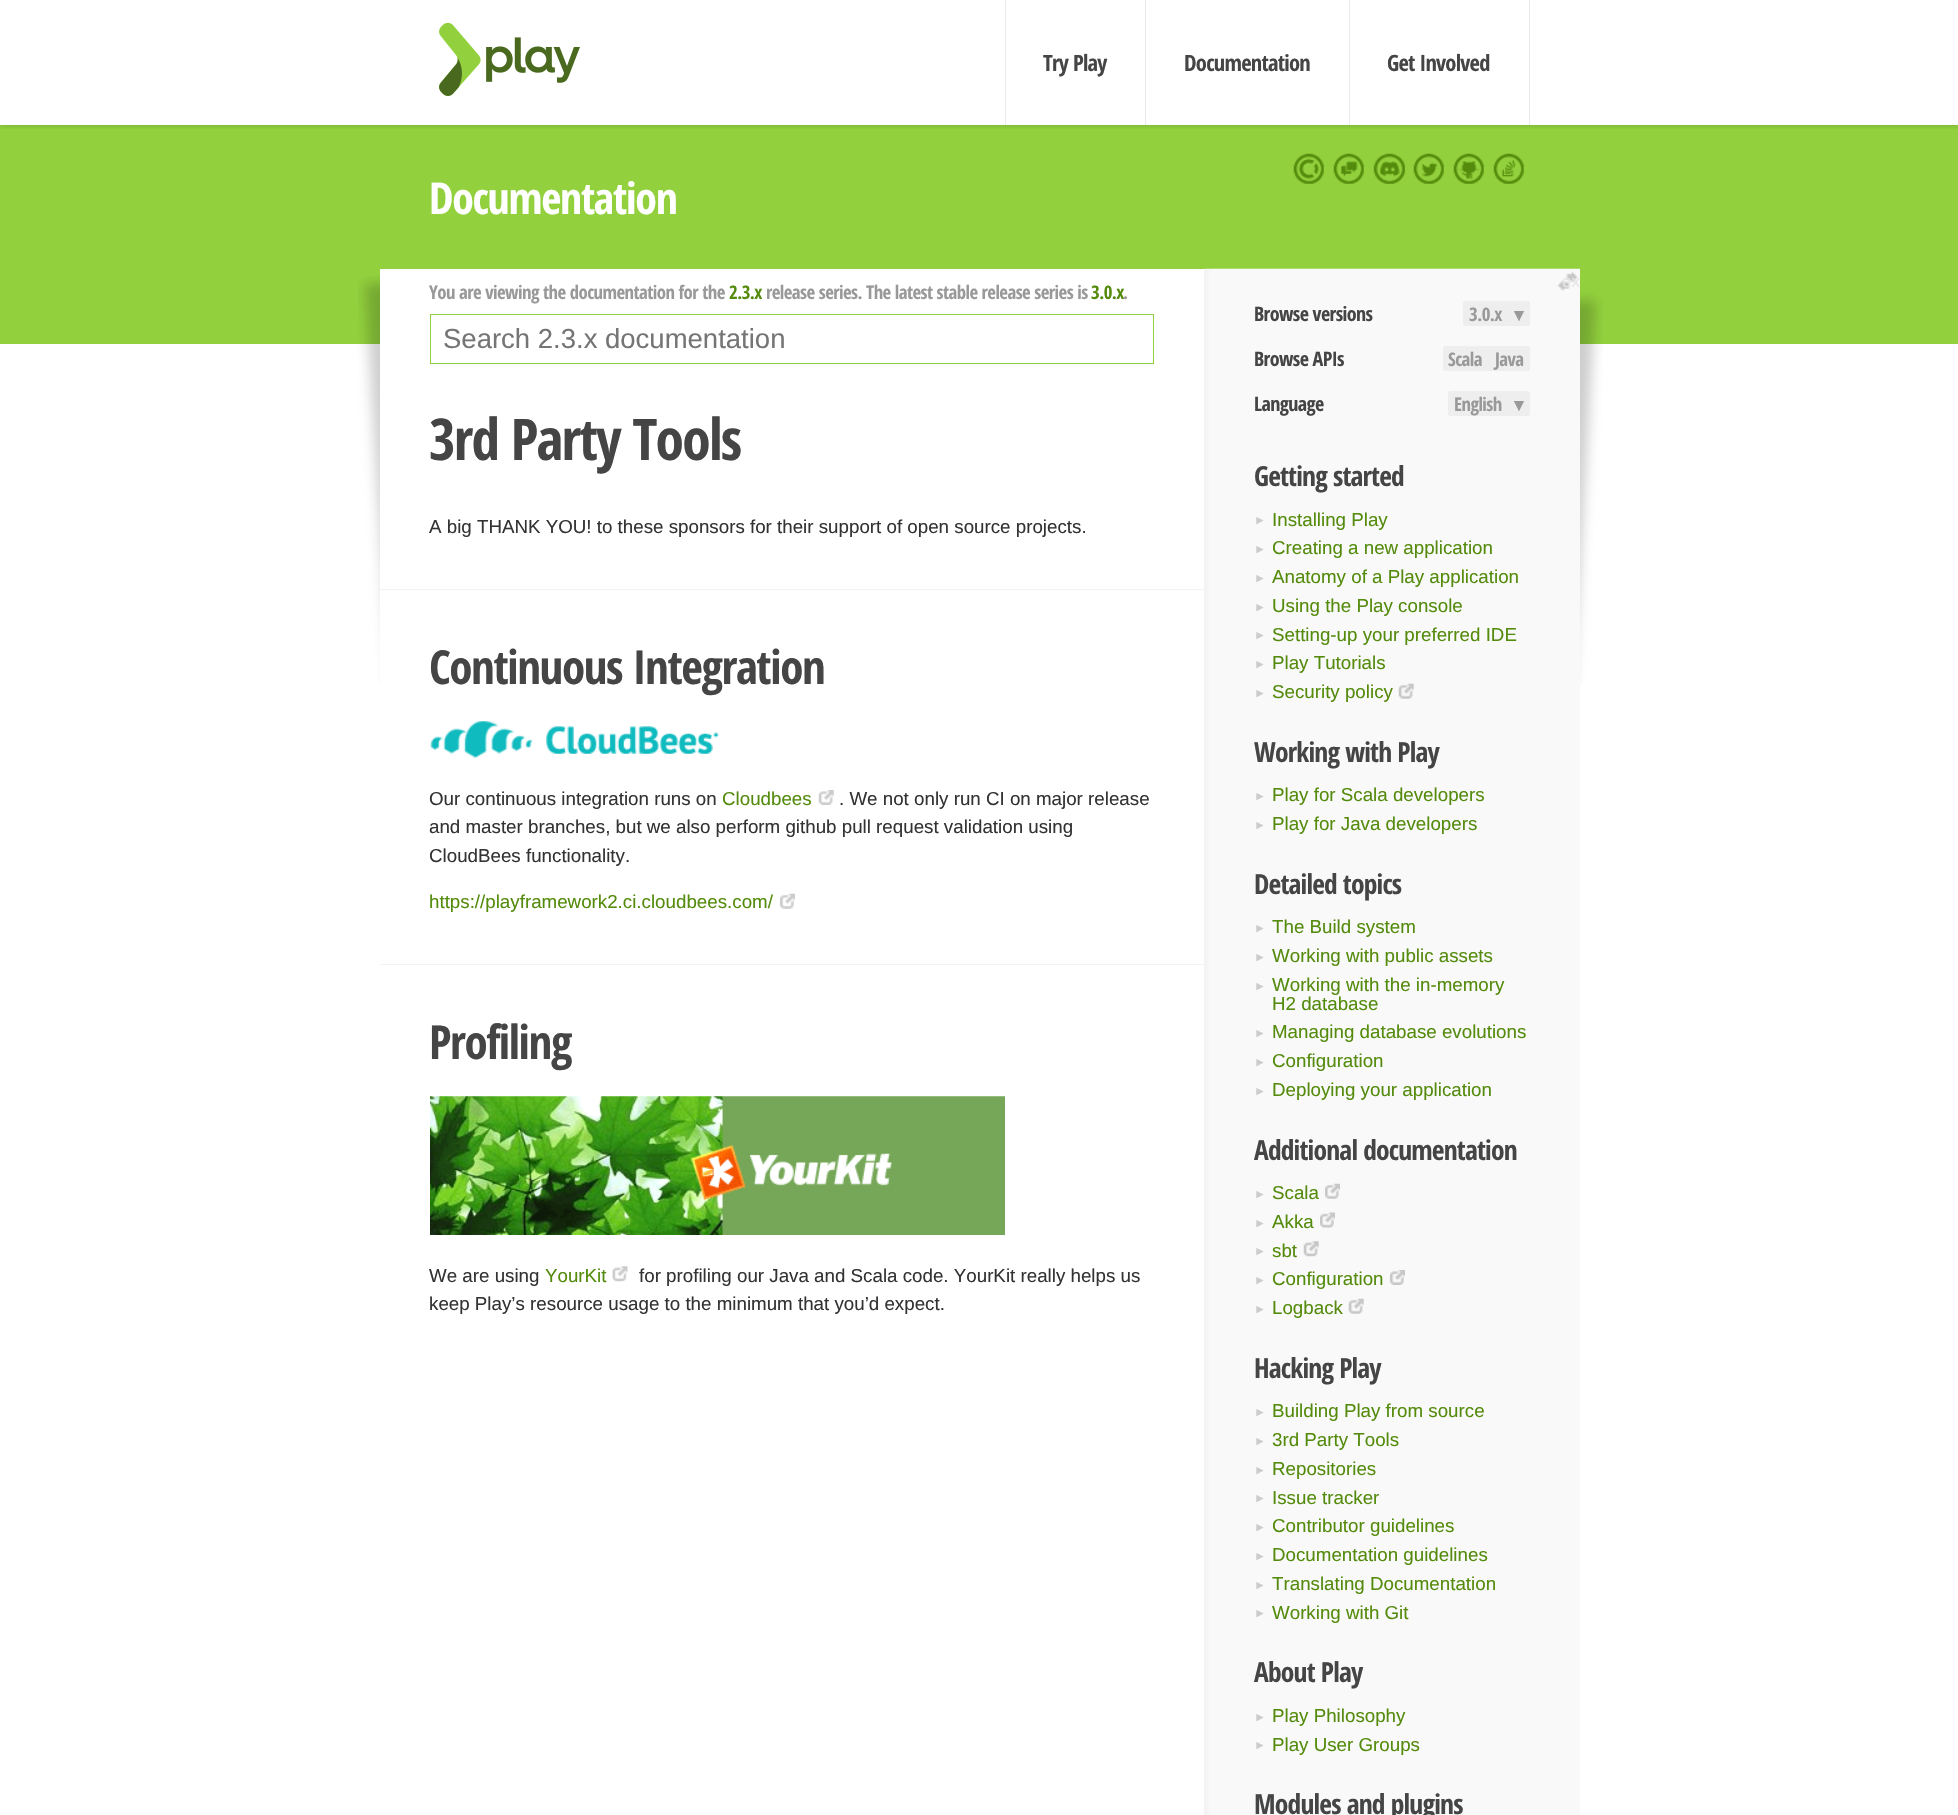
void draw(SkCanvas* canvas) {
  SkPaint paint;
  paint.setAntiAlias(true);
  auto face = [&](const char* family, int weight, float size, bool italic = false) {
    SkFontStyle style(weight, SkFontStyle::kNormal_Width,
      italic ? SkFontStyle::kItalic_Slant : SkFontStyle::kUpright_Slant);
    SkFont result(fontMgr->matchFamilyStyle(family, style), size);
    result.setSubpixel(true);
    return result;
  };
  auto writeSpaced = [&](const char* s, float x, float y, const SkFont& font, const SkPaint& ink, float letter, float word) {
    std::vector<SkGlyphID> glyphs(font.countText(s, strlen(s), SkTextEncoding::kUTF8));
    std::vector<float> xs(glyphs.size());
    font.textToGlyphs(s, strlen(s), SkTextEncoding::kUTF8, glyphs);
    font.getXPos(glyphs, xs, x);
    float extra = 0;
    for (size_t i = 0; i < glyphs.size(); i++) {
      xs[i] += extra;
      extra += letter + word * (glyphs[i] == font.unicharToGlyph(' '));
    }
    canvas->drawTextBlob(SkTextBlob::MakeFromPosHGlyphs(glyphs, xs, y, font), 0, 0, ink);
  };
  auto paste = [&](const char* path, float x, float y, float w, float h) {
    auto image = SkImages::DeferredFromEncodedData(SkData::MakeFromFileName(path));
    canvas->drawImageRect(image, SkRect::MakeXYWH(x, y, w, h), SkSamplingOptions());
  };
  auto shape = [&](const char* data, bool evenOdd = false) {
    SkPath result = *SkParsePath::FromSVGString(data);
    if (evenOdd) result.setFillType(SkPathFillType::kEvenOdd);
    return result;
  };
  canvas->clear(0xffffffff);
  paint.setColor(0xff92d13d);
  canvas->drawRect(SkRect::MakeXYWH(0, 125, 1958, 219), paint);
  canvas->save();
  canvas->clipRect(SkRect::MakeXYWH(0, 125, 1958, 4));
  paint.setColor(0x33000000);
  paint.setMaskFilter(SkMaskFilter::MakeBlur(kNormal_SkBlurStyle, 3));
  canvas->drawRect(SkRect::MakeXYWH(0, 0, 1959, 125), paint);
  paint.setMaskFilter(nullptr);
  canvas->restore();
  paste("img/1.png", 439, 22, 141, 74);
  {
    const struct { float x, y, w, h; SkColor color; } items[] = {
      {1529, 0, 1, 125, 0xffebebeb},
      {1005, 0, 1, 125, 0xffebebeb},
      {1145, 0, 1, 125, 0xffebebeb},
      {1349, 0, 1, 125, 0xffebebeb},
    };
    for (auto [x, y, w, h, color] : items) {
      paint.setColor(color);
      canvas->drawRect(SkRect::MakeXYWH(x, y, w, h), paint);
    }
  }
  paste("img/2.png", 1293, 153, 31, 31);
  paste("img/3.png", 1333, 153, 31, 31);
  paste("img/4.png", 1373, 153, 33, 31);
  paste("img/5.png", 1413, 153, 31, 31);
  paste("img/6.png", 1453, 153, 31, 31);
  paste("img/7.png", 1493, 153, 31, 31);
  paint.setColor(0xffffffff);
  canvas->drawRect(SkRect::MakeXYWH(380, 269, 829, 75), paint);
  paste("img/8.png", 1205, 268, 375, 1547);
  paste("img/9.png", 358, 276, 1245, 408);
  paste("img/10.png", 1557, 271, 21, 20);
  canvas->drawRect(SkRect::MakeXYWH(380, 276, 2, 408), paint);
  paint.setColor(0xfff4f3f1);
  canvas->drawRect(SkRect::MakeXYWH(1204, 270, 1, 1545), paint);
  paint.setStroke(true);
  paint.setStrokeWidth(1);
  paint.setColor(0xff92d13d);
  canvas->drawRect(SkRect::MakeXYWH(430.5f, 314.5f, 723, 49), paint);
  paint.setStroke(false);
  paint.setColor(0xfff4f3f1);
  canvas->drawRect(SkRect::MakeXYWH(380, 589, 824, 1), paint);
  paste("img/11.png", 430, 721, 289, 38);
  paste("img/12.png", 818, 790, 16, 15);
  paste("img/13.png", 780, 893, 15, 16);
  canvas->drawRect(SkRect::MakeXYWH(380, 964, 824, 1), paint);
  paste("img/14.png", 430, 1096, 575, 139);
  paste("img/15.png", 612, 1266, 16, 16);
  paint.setColor(0xffeeeeee);
  canvas->drawPath(shape("M1465.5 301H1508V326H1465.5C1464 326 1463 325 1463 323.5V303.5C1463 302 1464 301 1465.5 301Z"), paint);
  canvas->drawPath(shape("M1508 301H1527.5C1529 301 1530 302 1530 303.5V323.5C1530 325 1529 326 1527.5 326H1508Z"), paint);
  canvas->drawPath(shape("M1445.5 346H1489V371H1445.5C1444 371 1443 370 1443 368.5V348.5C1443 347 1444 346 1445.5 346Z"), paint);
  canvas->drawPath(shape("M1489 346H1527.5C1529 346 1530 347 1530 348.5V368.5C1530 370 1529 371 1527.5 371H1489Z"), paint);
  canvas->drawPath(shape("M1450.5 391H1508V416H1450.5C1449 416 1448 415 1448 413.5V393.5C1448 392 1449 391 1450.5 391Z"), paint);
  canvas->drawPath(shape("M1508 391H1527.5C1529 391 1530 392 1530 393.5V413.5C1530 415 1529 416 1527.5 416H1508Z"), paint);
  paste("img/16.png", 1398, 683, 16, 16);
  paste("img/17.png", 1325, 1183, 15, 16);
  paste("img/18.png", 1320, 1212, 15, 16);
  paste("img/19.png", 1303, 1241, 16, 16);
  paste("img/20.png", 1390, 1270, 15, 15);
  paste("img/21.png", 1348, 1298, 16, 16);
  auto f0 = face("Open Sans Condensed", 700, 22.5f);
  paint.setColor(0xff454545);
  {
    const struct { const char* s; float x, y; } items[] = {
      {"Try Play", 1043, 71},
      {"Documentation", 1184, 71},
      {"Get Involved", 1387, 71},
    };
    for (auto [s, x, y] : items) {
      writeSpaced(s, x, y, f0, paint, -0.75f, 0);
    }
  }
  auto f1 = face("Open Sans Condensed", 700, 43.75f);
  paint.setColor(0xffffffff);
  writeSpaced("Documentation", 429, 214, f1, paint, -1.25f, 0);
  auto f2 = face("Liberation Sans", 400, 17);
  paint.setColor(0xffe6e6e6);
  canvas->drawString("ex", 1562, 287, f2, paint);
  auto f3 = face("Open Sans Condensed", 700, 18.75f);
  paint.setColor(0xff999999);
  writeSpaced("You are viewing the documentation for the", 429, 299, f3, paint, -0.55f, 0);
  paint.setColor(0xff548b0c);
  writeSpaced("2.3.x", 729, 299, f3, paint, -0.55f, 0);
  paint.setColor(0xff999999);
  writeSpaced("release series. The latest stable release series is", 766, 299, f3, paint, -0.55f, 0);
  paint.setColor(0xff548b0c);
  writeSpaced("3.0.x", 1091, 299, f3, paint, -0.55f, 0);
  paint.setColor(0xff999999);
  writeSpaced(".", 1123, 299, f3, paint, -0.55f, 0);
  auto f4 = face("Liberation Sans", 400, 27.5f);
  paint.setColor(0xff757575);
  canvas->drawString("Search 2.3.x documentation", 443, 348, f4, paint);
  auto f5 = face("Open Sans Condensed", 700, 57.5f);
  paint.setColor(0xff454545);
  writeSpaced("3rd Party Tools", 429, 460, f5, paint, -1.75f, 0);
  auto f6 = face("Liberation Sans", 400, 18.75f);
  paint.setColor(0xff333333);
  canvas->drawString("A big THANK YOU! to these sponsors for their support of open source projects.", 429, 533, f6, paint);
  auto f7 = face("Open Sans Condensed", 700, 46.9f);
  paint.setColor(0xff454545);
  writeSpaced("Continuous Integration", 429, 684, f7, paint, -1.4f, 0);
  paint.setColor(0xff333333);
  canvas->drawString("Our continuous integration runs on", 429, 805, f6, paint);
  paint.setColor(0xff548b0c);
  canvas->drawString("Cloudbees", 722, 805, f6, paint);
  paint.setColor(0xff333333);
  {
    const struct { const char* s; float x, y; } items[] = {
      {". We not only run CI on major release", 839, 805},
      {"and master branches, but we also perform github pull request validation using", 429, 833},
      {"CloudBees functionality.", 429, 862},
    };
    for (auto [s, x, y] : items) {
      canvas->drawString(s, x, y, f6, paint);
    }
  }
  paint.setColor(0xff548b0c);
  canvas->drawString("https://playframework2.ci.cloudbees.com/", 429, 908, f6, paint);
  paint.setColor(0xff454545);
  writeSpaced("Profiling", 429, 1059, f7, paint, -1.4f, 0);
  paint.setColor(0xff333333);
  canvas->drawString("We are using", 429, 1282, f6, paint);
  paint.setColor(0xff548b0c);
  canvas->drawString("YourKit", 545, 1282, f6, paint);
  paint.setColor(0xff333333);
  canvas->drawString("for profiling our Java and Scala code. YourKit really helps us", 639, 1282, f6, paint);
  canvas->drawString("keep Play’s resource usage to the minimum that you’d expect.", 429, 1310, f6, paint);
  auto f8 = face("Open Sans Condensed", 700, 20);
  paint.setColor(0xff454545);
  writeSpaced("Browse versions", 1254, 321, f8, paint, -0.6f, 0);
  paint.setColor(0xff999999);
  writeSpaced("3.0.x", 1469, 321, f3, paint, -0.55f, 0);
  auto f9 = face("DejaVu Sans", 700, 18.75f);
  writeSpaced("▾", 1514, 321, f9, paint, -0.55f, 0);
  paint.setColor(0xff454545);
  writeSpaced("Browse APIs", 1254, 366, f8, paint, -0.6f, 0);
  paint.setColor(0xff999999);
  writeSpaced("Scala", 1448, 366, f3, paint, -0.55f, 0);
  writeSpaced("Java", 1495, 366, f3, paint, -0.55f, 0);
  paint.setColor(0xff454545);
  writeSpaced("Language", 1254, 411, f8, paint, -0.6f, 0);
  paint.setColor(0xff999999);
  writeSpaced("English", 1454, 411, f3, paint, -0.55f, 0);
  writeSpaced("▾", 1514, 411, f9, paint, -0.55f, 0);
  auto f10 = face("Open Sans Condensed", 700, 27.5f);
  paint.setColor(0xff454545);
  writeSpaced("Getting started", 1254, 486, f10, paint, -0.8f, 0);
  auto f11 = face("Liberation Sans", 400, 12);
  paint.setColor(0xffcccccc);
  canvas->drawString("►", 1254, 524, f11, paint);
  paint.setColor(0xff548b0c);
  canvas->drawString("Installing Play", 1272, 526, f6, paint);
  paint.setColor(0xffcccccc);
  canvas->drawString("►", 1254, 553, f11, paint);
  paint.setColor(0xff548b0c);
  canvas->drawString("Creating a new application", 1272, 554, f6, paint);
  paint.setColor(0xffcccccc);
  canvas->drawString("►", 1254, 582, f11, paint);
  paint.setColor(0xff548b0c);
  canvas->drawString("Anatomy of a Play application", 1272, 583, f6, paint);
  paint.setColor(0xffcccccc);
  canvas->drawString("►", 1254, 611, f11, paint);
  paint.setColor(0xff548b0c);
  canvas->drawString("Using the Play console", 1272, 612, f6, paint);
  paint.setColor(0xffcccccc);
  canvas->drawString("►", 1254, 639, f11, paint);
  paint.setColor(0xff548b0c);
  canvas->drawString("Setting-up your preferred IDE", 1272, 641, f6, paint);
  paint.setColor(0xffcccccc);
  canvas->drawString("►", 1254, 668, f11, paint);
  paint.setColor(0xff548b0c);
  canvas->drawString("Play Tutorials", 1272, 669, f6, paint);
  paint.setColor(0xffcccccc);
  canvas->drawString("►", 1254, 697, f11, paint);
  paint.setColor(0xff548b0c);
  canvas->drawString("Security policy", 1272, 698, f6, paint);
  paint.setColor(0xff454545);
  writeSpaced("Working with Play", 1254, 762, f10, paint, -0.8f, 0);
  paint.setColor(0xffcccccc);
  canvas->drawString("►", 1254, 800, f11, paint);
  paint.setColor(0xff548b0c);
  canvas->drawString("Play for Scala developers", 1272, 801, f6, paint);
  paint.setColor(0xffcccccc);
  canvas->drawString("►", 1254, 829, f11, paint);
  paint.setColor(0xff548b0c);
  canvas->drawString("Play for Java developers", 1272, 830, f6, paint);
  paint.setColor(0xff454545);
  writeSpaced("Detailed topics", 1254, 894, f10, paint, -0.8f, 0);
  paint.setColor(0xffcccccc);
  canvas->drawString("►", 1254, 932, f11, paint);
  paint.setColor(0xff548b0c);
  canvas->drawString("The Build system", 1272, 933, f6, paint);
  paint.setColor(0xffcccccc);
  canvas->drawString("►", 1254, 961, f11, paint);
  paint.setColor(0xff548b0c);
  canvas->drawString("Working with public assets", 1272, 962, f6, paint);
  paint.setColor(0xffcccccc);
  canvas->drawString("►", 1254, 990, f11, paint);
  paint.setColor(0xff548b0c);
  canvas->drawString("Working with the in-memory", 1272, 991, f6, paint);
  canvas->drawString("H2 database", 1272, 1010, f6, paint);
  paint.setColor(0xffcccccc);
  canvas->drawString("►", 1254, 1037, f11, paint);
  paint.setColor(0xff548b0c);
  canvas->drawString("Managing database evolutions", 1272, 1038, f6, paint);
  paint.setColor(0xffcccccc);
  canvas->drawString("►", 1254, 1066, f11, paint);
  paint.setColor(0xff548b0c);
  canvas->drawString("Configuration", 1272, 1067, f6, paint);
  paint.setColor(0xffcccccc);
  canvas->drawString("►", 1254, 1095, f11, paint);
  paint.setColor(0xff548b0c);
  canvas->drawString("Deploying your application", 1272, 1096, f6, paint);
  paint.setColor(0xff454545);
  writeSpaced("Additional documentation", 1254, 1160, f10, paint, -0.8f, 0);
  paint.setColor(0xffcccccc);
  canvas->drawString("►", 1254, 1198, f11, paint);
  paint.setColor(0xff548b0c);
  canvas->drawString("Scala", 1272, 1199, f6, paint);
  paint.setColor(0xffcccccc);
  canvas->drawString("►", 1254, 1227, f11, paint);
  paint.setColor(0xff548b0c);
  canvas->drawString("Akka", 1272, 1228, f6, paint);
  paint.setColor(0xffcccccc);
  canvas->drawString("►", 1254, 1255, f11, paint);
  paint.setColor(0xff548b0c);
  canvas->drawString("sbt", 1272, 1257, f6, paint);
  paint.setColor(0xffcccccc);
  canvas->drawString("►", 1254, 1284, f11, paint);
  paint.setColor(0xff548b0c);
  canvas->drawString("Configuration", 1272, 1285, f6, paint);
  paint.setColor(0xffcccccc);
  canvas->drawString("►", 1254, 1313, f11, paint);
  paint.setColor(0xff548b0c);
  canvas->drawString("Logback", 1272, 1314, f6, paint);
  paint.setColor(0xff454545);
  writeSpaced("Hacking Play", 1254, 1378, f10, paint, -0.8f, 0);
  paint.setColor(0xffcccccc);
  canvas->drawString("►", 1254, 1416, f11, paint);
  paint.setColor(0xff548b0c);
  canvas->drawString("Building Play from source", 1272, 1417, f6, paint);
  paint.setColor(0xffcccccc);
  canvas->drawString("►", 1254, 1445, f11, paint);
  paint.setColor(0xff548b0c);
  canvas->drawString("3rd Party Tools", 1272, 1446, f6, paint);
  paint.setColor(0xffcccccc);
  canvas->drawString("►", 1254, 1474, f11, paint);
  paint.setColor(0xff548b0c);
  canvas->drawString("Repositories", 1272, 1475, f6, paint);
  paint.setColor(0xffcccccc);
  canvas->drawString("►", 1254, 1502, f11, paint);
  paint.setColor(0xff548b0c);
  canvas->drawString("Issue tracker", 1272, 1504, f6, paint);
  paint.setColor(0xffcccccc);
  canvas->drawString("►", 1254, 1531, f11, paint);
  paint.setColor(0xff548b0c);
  canvas->drawString("Contributor guidelines", 1272, 1532, f6, paint);
  paint.setColor(0xffcccccc);
  canvas->drawString("►", 1254, 1560, f11, paint);
  paint.setColor(0xff548b0c);
  canvas->drawString("Documentation guidelines", 1272, 1561, f6, paint);
  paint.setColor(0xffcccccc);
  canvas->drawString("►", 1254, 1589, f11, paint);
  paint.setColor(0xff548b0c);
  canvas->drawString("Translating Documentation", 1272, 1590, f6, paint);
  paint.setColor(0xffcccccc);
  canvas->drawString("►", 1254, 1617, f11, paint);
  paint.setColor(0xff548b0c);
  canvas->drawString("Working with Git", 1272, 1619, f6, paint);
  paint.setColor(0xff454545);
  writeSpaced("About Play", 1254, 1682, f10, paint, -0.8f, 0);
  paint.setColor(0xffcccccc);
  canvas->drawString("►", 1254, 1721, f11, paint);
  paint.setColor(0xff548b0c);
  canvas->drawString("Play Philosophy", 1272, 1722, f6, paint);
  paint.setColor(0xffcccccc);
  canvas->drawString("►", 1254, 1749, f11, paint);
  paint.setColor(0xff548b0c);
  canvas->drawString("Play User Groups", 1272, 1751, f6, paint);
  paint.setColor(0xff454545);
  writeSpaced("Modules and plugins", 1254, 1814, f10, paint, -0.8f, 0);
}
